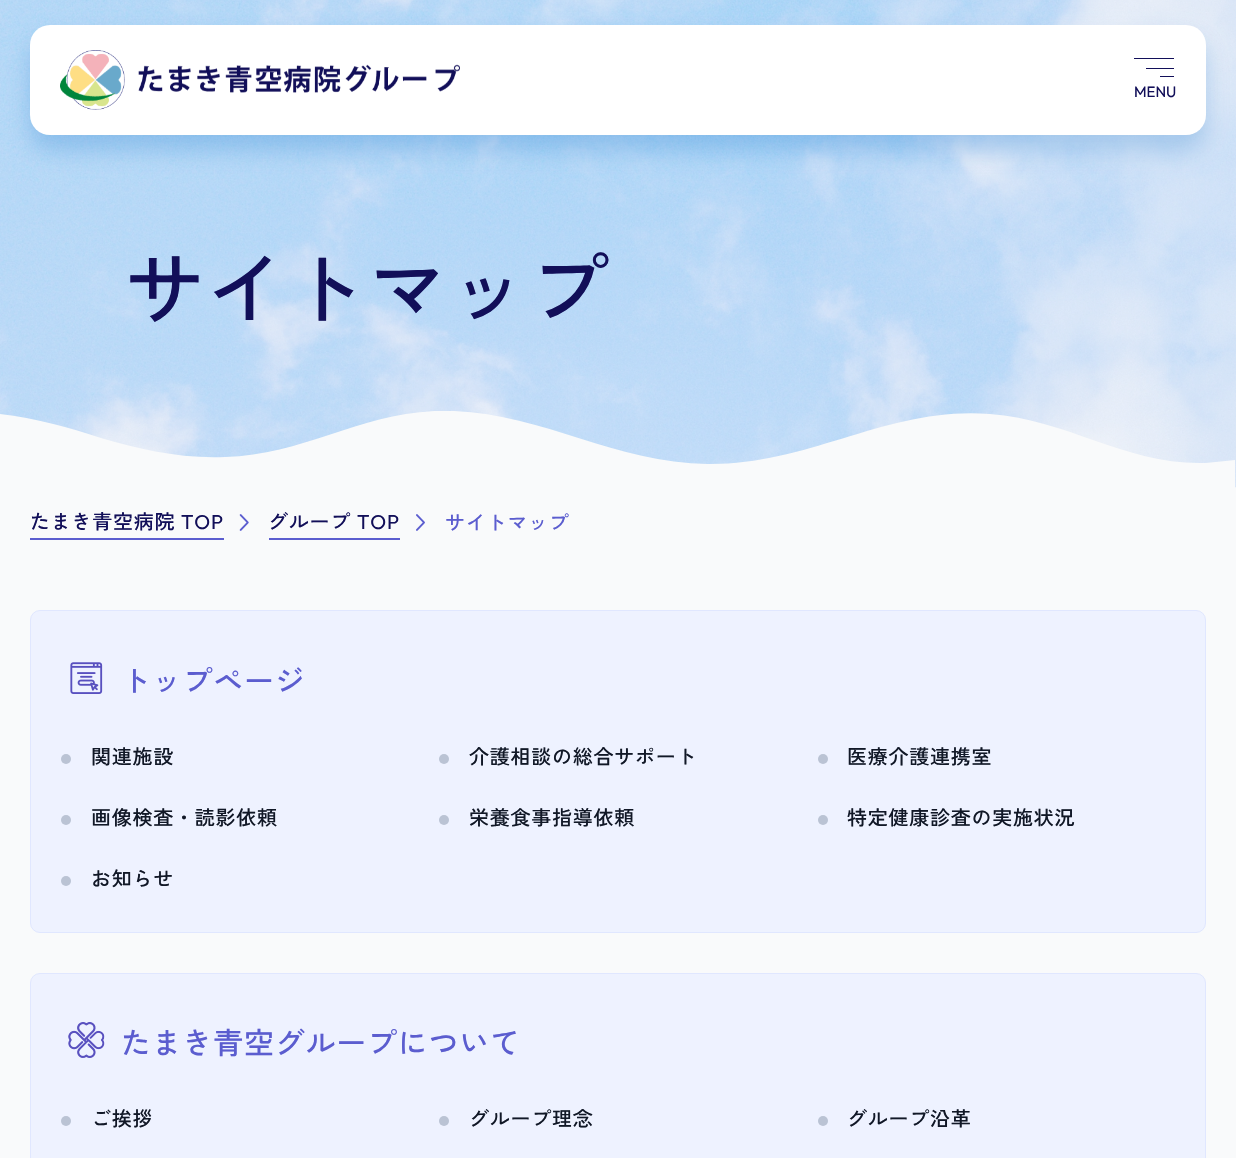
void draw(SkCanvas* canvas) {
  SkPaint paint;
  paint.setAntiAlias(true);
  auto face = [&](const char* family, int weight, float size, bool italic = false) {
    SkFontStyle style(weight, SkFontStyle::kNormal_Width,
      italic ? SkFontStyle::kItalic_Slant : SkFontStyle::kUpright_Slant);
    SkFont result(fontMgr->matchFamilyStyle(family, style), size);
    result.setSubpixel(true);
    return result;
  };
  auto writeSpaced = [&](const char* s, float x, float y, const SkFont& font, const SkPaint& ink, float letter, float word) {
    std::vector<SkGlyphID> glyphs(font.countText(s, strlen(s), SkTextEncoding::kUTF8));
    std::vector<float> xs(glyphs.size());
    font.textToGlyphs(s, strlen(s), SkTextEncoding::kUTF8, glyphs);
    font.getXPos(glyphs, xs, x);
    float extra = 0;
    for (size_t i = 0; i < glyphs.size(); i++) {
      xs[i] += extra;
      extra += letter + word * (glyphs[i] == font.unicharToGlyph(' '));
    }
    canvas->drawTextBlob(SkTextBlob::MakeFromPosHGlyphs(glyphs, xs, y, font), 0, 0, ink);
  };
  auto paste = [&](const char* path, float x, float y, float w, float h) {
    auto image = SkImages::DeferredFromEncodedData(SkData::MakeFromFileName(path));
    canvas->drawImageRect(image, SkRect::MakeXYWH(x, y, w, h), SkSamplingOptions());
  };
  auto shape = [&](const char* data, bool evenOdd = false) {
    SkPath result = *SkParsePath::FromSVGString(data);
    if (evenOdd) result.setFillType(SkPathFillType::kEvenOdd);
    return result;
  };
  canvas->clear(0xfff9fafb);
  paste("img/2.png", 0, 0, 1236, 488);
  paint.setColor(0x3d0068c4);
  paint.setMaskFilter(SkMaskFilter::MakeBlur(kNormal_SkBlurStyle, 12.5f));
  canvas->drawRoundRect(SkRect::MakeXYWH(30, 40, 1176, 110), 20, 20, paint);
  paint.setMaskFilter(nullptr);
  paint.setColor(0xffffffff);
  canvas->drawRoundRect(SkRect::MakeXYWH(30, 25, 1176, 110), 20, 20, paint);
  paste("img/1.png", 60, 50, 400, 60);
  {
    const struct { float x, y, w, h; SkColor color; } items[] = {
      {1134, 58, 40, 1, 0xff120f59},
      {1146, 68, 28, 1, 0xff120f59},
      {1160, 76, 14, 1, 0xff120f59},
    };
    for (auto [x, y, w, h, color] : items) {
      paint.setColor(color);
      canvas->drawRect(SkRect::MakeXYWH(x, y, w, h), paint);
    }
  }
  canvas->save();
  canvas->clipRect(SkRect::MakeXYWH(0, 411, 1235, 77));
  paint.setColor(0xfff9fafb);
  canvas->drawPath(shape("M1235 489V460C1225 461 1216 462 1205 463C1125 465 1070 420 990 414C888 406 811 465 708 464C608 463 534 407 434 411C356 415 303 455 225 457C181 459 139 449 101 438C70 428 35 418-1 414V489Z"), paint);
  canvas->restore();
  paint.setColor(0xff5b5dcf);
  canvas->drawRect(SkRect::MakeXYWH(30, 538, 194, 2), paint);
  paste("img/3.png", 239, 514, 10, 17);
  canvas->drawRect(SkRect::MakeXYWH(269, 538, 131, 2), paint);
  paste("img/4.png", 416, 514, 9, 17);
  paint.setColor(0xffeef2ff);
  canvas->drawRoundRect(SkRect::MakeXYWH(30.5f, 610.5f, 1175, 322), 9.5f, 9.5f, paint);
  paint.setStroke(true);
  paint.setStrokeWidth(1);
  paint.setColor(0xffe0e7ff);
  canvas->drawRoundRect(SkRect::MakeXYWH(30.5f, 610.5f, 1175, 322), 9.5f, 9.5f, paint);
  paste("img/5.png", 70, 662, 33, 32);
  paint.setStroke(false);
  paint.setColor(0xffbac3d4);
  canvas->drawCircle(66, 759, 5, paint);
  canvas->drawCircle(444, 759, 5, paint);
  canvas->drawCircle(823, 759, 5, paint);
  canvas->drawCircle(66, 820, 5, paint);
  canvas->drawCircle(444, 820, 5, paint);
  canvas->drawCircle(823, 820, 5, paint);
  canvas->drawCircle(66, 881, 5, paint);
  paint.setColor(0xffeef2ff);
  canvas->drawRoundRect(SkRect::MakeXYWH(30.5f, 973.5f, 1175, 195), 9.5f, 9.5f, paint);
  paint.setStroke(true);
  paint.setColor(0xffe0e7ff);
  canvas->drawRoundRect(SkRect::MakeXYWH(30.5f, 973.5f, 1175, 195), 9.5f, 9.5f, paint);
  paste("img/6.png", 68, 1022, 37, 36);
  paint.setStroke(false);
  paint.setColor(0xffbac3d4);
  canvas->drawCircle(66, 1121, 5, paint);
  canvas->drawCircle(444, 1121, 5, paint);
  canvas->drawCircle(823, 1121, 5, paint);
  auto f0 = face("Outfit", 400, 15);
  paint.setColor(0xff120f59);
  canvas->drawString("MENU", 1134, 97, f0, paint);
  auto f1 = face("Zen Kaku Gothic New", 500, 80);
  writeSpaced("サイトマップ", 125, 319, f1, paint, 0.75f, 0);
  auto f2 = face("Zen Kaku Gothic New", 500, 20);
  writeSpaced("たまき青空病院", 30, 529, f2, paint, 0.75f, 0);
  auto f3 = face("Outfit", 400, 20);
  writeSpaced("TOP", 181, 529, f3, paint, 0.75f, 0);
  writeSpaced("グループ", 268, 529, f2, paint, 0.75f, 0);
  writeSpaced("TOP", 357, 529, f3, paint, 0.75f, 0);
  paint.setColor(0xff5b5dcf);
  writeSpaced("サイトマップ", 445, 530, f2, paint, 0.75f, 0);
  auto f4 = face("Zen Kaku Gothic New", 500, 30);
  writeSpaced("トップページ", 121, 692, f4, paint, 0.75f, 0);
  paint.setColor(0xff111827);
  {
    const struct { const char* s; float x, y; } items[] = {
      {"関連施設", 91, 764},
      {"介護相談の総合サポート", 469, 764},
      {"医療介護連携室", 847, 764},
      {"画像検査・読影依頼", 91, 825},
      {"栄養食事指導依頼", 469, 825},
      {"特定健康診査の実施状況", 847, 825},
      {"お知らせ", 91, 886},
    };
    for (auto [s, x, y] : items) {
      writeSpaced(s, x, y, f2, paint, 0.75f, 0);
    }
  }
  paint.setColor(0xff5b5dcf);
  writeSpaced("たまき青空グループについて", 121, 1054, f4, paint, 0.75f, 0);
  paint.setColor(0xff111827);
  {
    const struct { const char* s; float x, y; } items[] = {
      {"ご挨拶", 91, 1126},
      {"グループ理念", 469, 1126},
      {"グループ沿革", 847, 1126},
    };
    for (auto [s, x, y] : items) {
      writeSpaced(s, x, y, f2, paint, 0.75f, 0);
    }
  }
}
